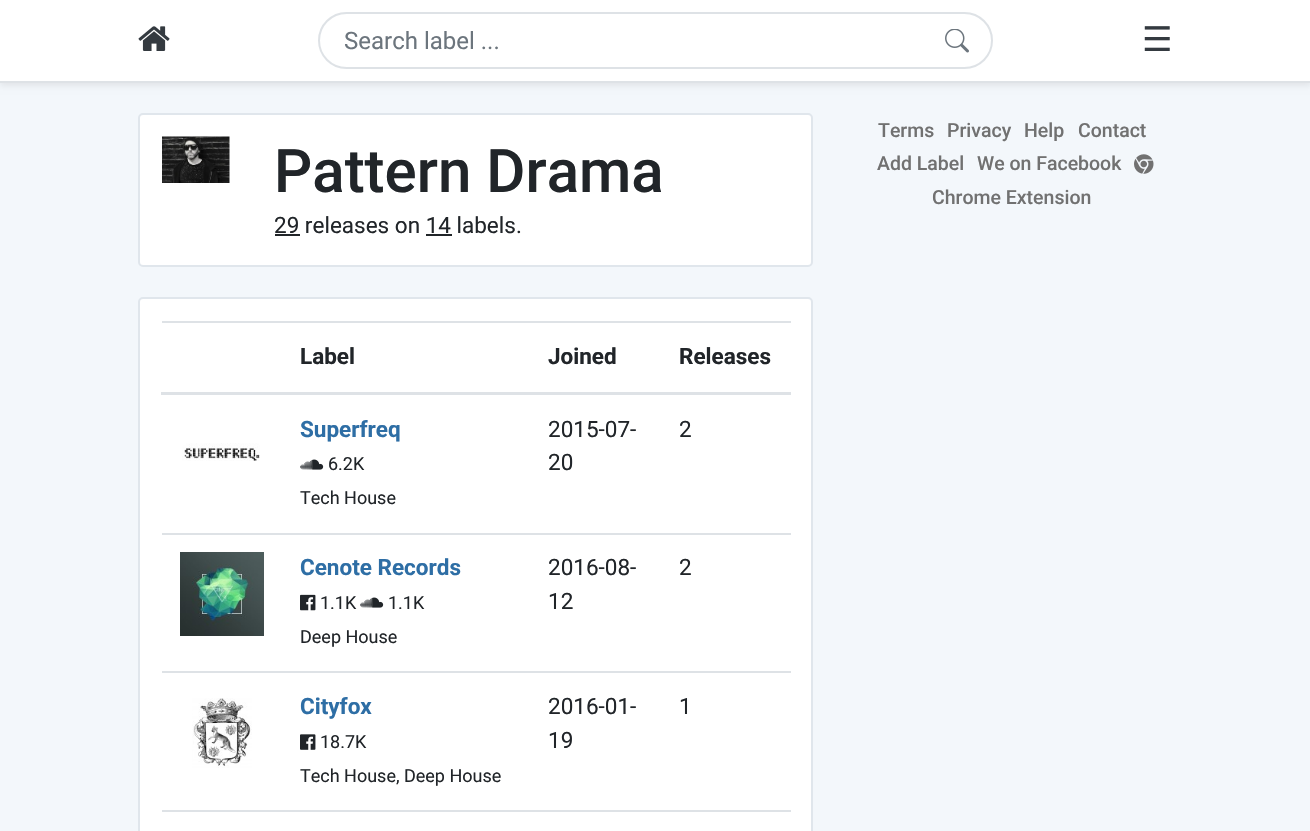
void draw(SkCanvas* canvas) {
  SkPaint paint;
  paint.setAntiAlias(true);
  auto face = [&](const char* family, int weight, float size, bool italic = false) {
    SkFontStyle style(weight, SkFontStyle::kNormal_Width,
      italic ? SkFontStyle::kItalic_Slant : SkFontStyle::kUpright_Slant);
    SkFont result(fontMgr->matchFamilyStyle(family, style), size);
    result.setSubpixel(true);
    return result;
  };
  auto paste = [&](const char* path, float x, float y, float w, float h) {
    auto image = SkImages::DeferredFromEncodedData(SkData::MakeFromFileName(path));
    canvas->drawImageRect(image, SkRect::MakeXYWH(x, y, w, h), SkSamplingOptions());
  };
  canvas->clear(0xfff3f7fb);
  paint.setColor(0x12000000);
  paint.setMaskFilter(SkMaskFilter::MakeBlur(kNormal_SkBlurStyle, 3));
  canvas->drawRect(SkRect::MakeXYWH(0, 3, 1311, 83), paint);
  paint.setMaskFilter(nullptr);
  paint.setColor(0xffffffff);
  canvas->drawRect(SkRect::MakeXYWH(0, 0, 1310, 81), paint);
  paint.setColor(0xffdee2e6);
  canvas->drawRect(SkRect::MakeXYWH(0, 81, 1310, 2), paint);
  paste("img/1.png", 138, 26, 32, 25);
  paint.setStroke(true);
  paint.setStrokeWidth(2);
  canvas->drawRoundRect(SkRect::MakeXYWH(319, 13, 673, 55), 27.5f, 27.5f, paint);
  paste("img/2.png", 945, 29, 24, 24);
  paint.setStroke(false);
  paint.setColor(0xffffffff);
  canvas->drawRoundRect(SkRect::MakeXYWH(139, 114, 673, 152), 4, 4, paint);
  paint.setStroke(true);
  paint.setColor(0xffe0e6ec);
  canvas->drawRoundRect(SkRect::MakeXYWH(139, 114, 673, 152), 4, 4, paint);
  paste("img/3.png", 162, 136, 68, 47);
  paint.setStroke(false);
  paint.setColor(0xff212529);
  canvas->drawRect(SkRect::MakeXYWH(275, 234, 25, 2), paint);
  canvas->drawRect(SkRect::MakeXYWH(426, 234, 26, 2), paint);
  paint.setColor(0xffffffff);
  canvas->drawRoundRect(SkRect::MakeXYWH(139, 298, 673, 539), 4, 4, paint);
  paint.setStroke(true);
  paint.setColor(0xffe0e6ec);
  canvas->drawRoundRect(SkRect::MakeXYWH(139, 298, 673, 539), 4, 4, paint);
  paint.setStroke(false);
  paint.setColor(0xffdee2e6);
  canvas->drawRect(SkRect::MakeXYWH(162, 321, 629, 2), paint);
  canvas->drawRect(SkRect::MakeXYWH(161, 392, 630, 3), paint);
  paste("img/4.png", 300, 459, 24, 11);
  paste("img/5.png", 182, 443, 78, 18);
  paste("img/6.png", 180, 552, 84, 84);
  paste("img/7.png", 300, 594, 16, 17);
  paste("img/4.png", 360, 597, 24, 11);
  canvas->drawRect(SkRect::MakeXYWH(162, 533, 629, 2), paint);
  paste("img/8.png", 192, 698, 60, 70);
  paste("img/9.png", 300, 734, 16, 16);
  canvas->drawRect(SkRect::MakeXYWH(162, 671, 629, 2), paint);
  canvas->drawRect(SkRect::MakeXYWH(162, 810, 629, 2), paint);
  paste("img/10.png", 1134, 154, 20, 20);
  auto f0 = face("Roboto", 400, 24);
  paint.setColor(0xff6c757d);
  canvas->drawString("Search label ...", 344, 49, f0, paint);
  auto f1 = face("DejaVu Sans", 400, 34);
  paint.setColor(0xff343a40);
  canvas->drawString("☰", 1142, 51, f1, paint);
  auto f2 = face("Roboto", 500, 60);
  paint.setColor(0xff212529);
  canvas->drawString("Pattern Drama", 274, 192, f2, paint);
  auto f3 = face("Roboto", 400, 22.5f);
  canvas->drawString("29 releases on 14 labels.", 274, 233, f3, paint);
  auto f4 = face("Roboto", 700, 22.5f);
  {
    const struct { const char* s; float x, y; } items[] = {
      {"Label", 300, 364},
      {"Joined", 548, 364},
      {"Releases", 679, 364},
    };
    for (auto [s, x, y] : items) {
      canvas->drawString(s, x, y, f4, paint);
    }
  }
  paint.setColor(0xff2e6ea5);
  canvas->drawString("Superfreq", 300, 437, f4, paint);
  auto f5 = face("Roboto", 400, 18);
  paint.setColor(0xff212529);
  canvas->drawString("6.2K", 328, 470, f5, paint);
  canvas->drawString("Tech House", 300, 504, f5, paint);
  {
    const struct { const char* s; float x, y; } items[] = {
      {"2015-07-", 548, 437},
      {"20", 548, 470},
      {"2", 679, 437},
    };
    for (auto [s, x, y] : items) {
      canvas->drawString(s, x, y, f3, paint);
    }
  }
  paint.setColor(0xff2e6ea5);
  canvas->drawString("Cenote Records", 300, 575, f4, paint);
  paint.setColor(0xff212529);
  {
    const struct { const char* s; float x, y; } items[] = {
      {"1.1K", 320, 609},
      {"1.1K", 388, 609},
      {"Deep House", 300, 643},
    };
    for (auto [s, x, y] : items) {
      canvas->drawString(s, x, y, f5, paint);
    }
  }
  {
    const struct { const char* s; float x, y; } items[] = {
      {"2016-08-", 548, 575},
      {"12", 548, 609},
      {"2", 679, 575},
    };
    for (auto [s, x, y] : items) {
      canvas->drawString(s, x, y, f3, paint);
    }
  }
  paint.setColor(0xff2e6ea5);
  canvas->drawString("Cityfox", 300, 714, f4, paint);
  paint.setColor(0xff212529);
  canvas->drawString("18.7K", 320, 748, f5, paint);
  canvas->drawString("Tech House, Deep House", 300, 782, f5, paint);
  {
    const struct { const char* s; float x, y; } items[] = {
      {"2016-01-", 548, 714},
      {"19", 548, 748},
      {"1", 679, 714},
    };
    for (auto [s, x, y] : items) {
      canvas->drawString(s, x, y, f3, paint);
    }
  }
  auto f6 = face("Roboto", 500, 19.5f);
  paint.setColor(0xff717171);
  {
    const struct { const char* s; float x, y; } items[] = {
      {"Terms", 878, 137},
      {"Privacy", 947, 137},
      {"Help", 1024, 137},
      {"Contact", 1078, 137},
      {"Add Label", 877, 170},
      {"We on Facebook", 977, 170},
      {"Chrome Extension", 932, 204},
    };
    for (auto [s, x, y] : items) {
      canvas->drawString(s, x, y, f6, paint);
    }
  }
}
